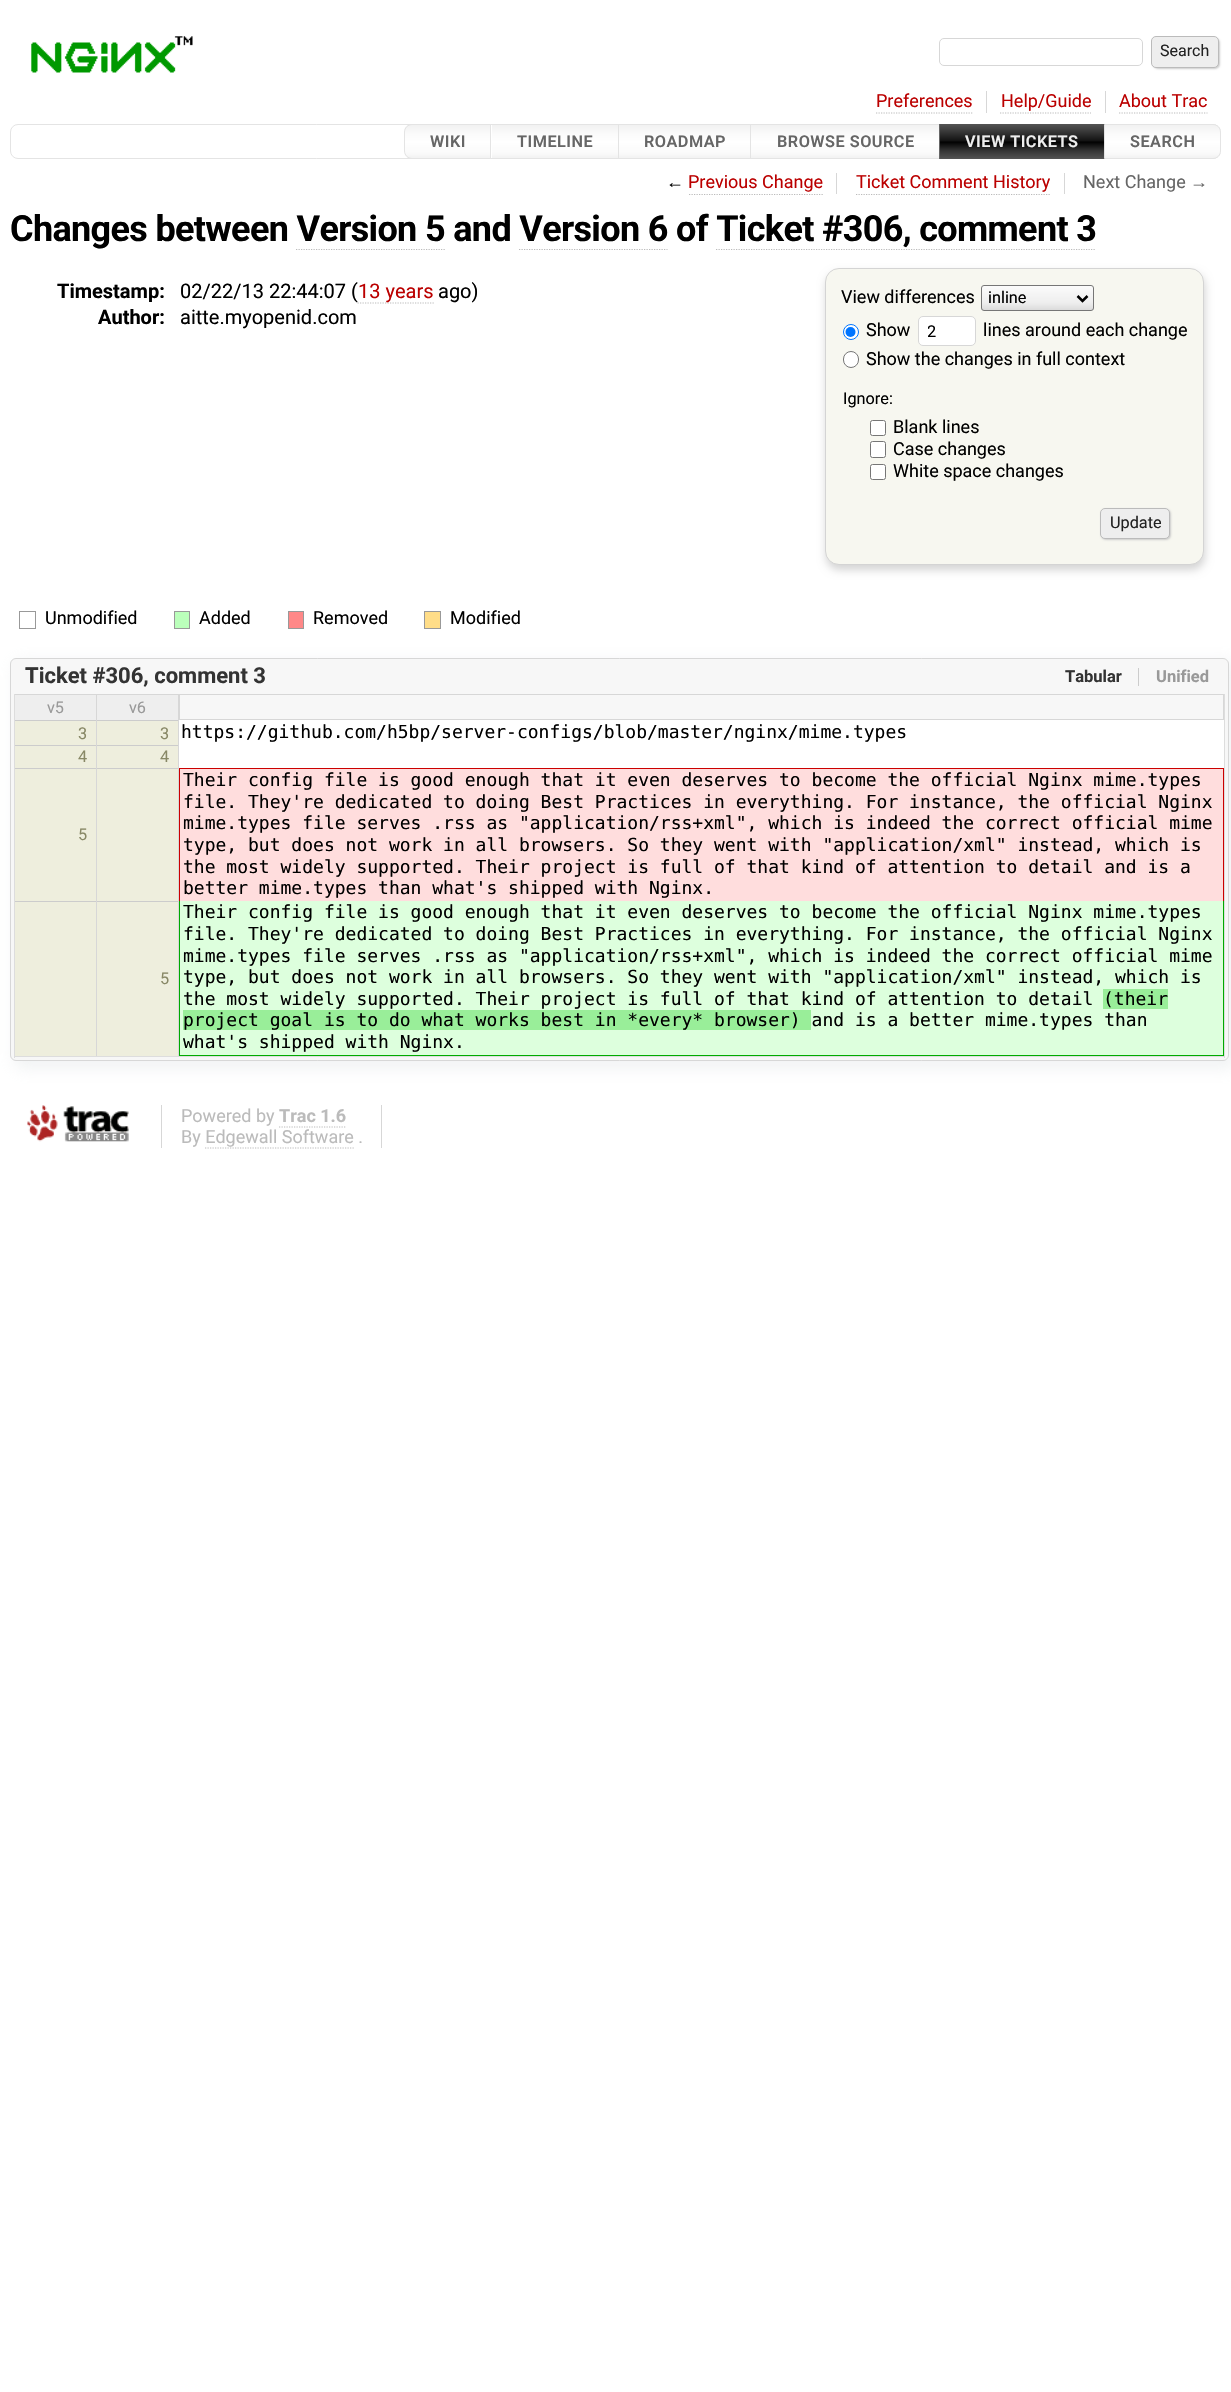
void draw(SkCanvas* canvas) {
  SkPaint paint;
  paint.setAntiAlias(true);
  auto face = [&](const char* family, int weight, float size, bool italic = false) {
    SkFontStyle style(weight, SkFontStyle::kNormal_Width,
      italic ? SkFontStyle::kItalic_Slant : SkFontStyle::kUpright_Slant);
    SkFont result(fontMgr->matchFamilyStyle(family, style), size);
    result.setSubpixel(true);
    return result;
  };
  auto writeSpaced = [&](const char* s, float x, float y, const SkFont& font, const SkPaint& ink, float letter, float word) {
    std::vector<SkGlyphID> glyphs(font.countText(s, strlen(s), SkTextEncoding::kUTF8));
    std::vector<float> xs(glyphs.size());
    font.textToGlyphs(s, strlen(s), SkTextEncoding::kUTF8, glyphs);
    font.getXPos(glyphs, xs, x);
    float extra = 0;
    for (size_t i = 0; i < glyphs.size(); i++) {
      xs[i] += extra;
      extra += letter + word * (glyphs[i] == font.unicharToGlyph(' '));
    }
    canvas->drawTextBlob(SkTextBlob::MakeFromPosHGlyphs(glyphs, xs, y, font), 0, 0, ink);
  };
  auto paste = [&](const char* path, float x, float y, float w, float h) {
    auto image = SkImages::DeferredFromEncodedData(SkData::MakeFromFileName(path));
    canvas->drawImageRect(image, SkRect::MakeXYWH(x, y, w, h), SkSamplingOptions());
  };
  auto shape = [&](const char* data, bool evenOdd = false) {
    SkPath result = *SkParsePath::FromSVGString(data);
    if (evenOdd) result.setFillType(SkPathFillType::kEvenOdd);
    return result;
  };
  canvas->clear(0xffffffff);
  paste("img/1.png", 31, 36, 162, 37);
  paint.setStroke(true);
  paint.setStrokeWidth(1);
  paint.setColor(0xffd7d7d7);
  canvas->drawRoundRect(SkRect::MakeXYWH(939.5f, 38.5f, 203, 27), 4.5f, 4.5f, paint);
  paint.setStroke(false);
  paint.setColor(0xffcccccc);
  paint.setMaskFilter(SkMaskFilter::MakeBlur(kNormal_SkBlurStyle, 1));
  canvas->drawRoundRect(SkRect::MakeXYWH(1153, 38, 67, 31), 5, 5, paint);
  paint.setMaskFilter(nullptr);
  paint.setColor(0xffeeeeee);
  canvas->drawRoundRect(SkRect::MakeXYWH(1151.5f, 36.5f, 67, 31), 4.5f, 4.5f, paint);
  paint.setStroke(true);
  paint.setColor(0xffbbbbbb);
  canvas->drawRoundRect(SkRect::MakeXYWH(1151.5f, 36.5f, 67, 31), 4.5f, 4.5f, paint);
  paint.setStroke(false);
  paint.setColor(0xffd7d7d7);
  canvas->drawRect(SkRect::MakeXYWH(986, 91, 1, 22), paint);
  paint.setStroke(true);
  paint.setStrokeWidth(1.2f);
  paint.setColor(0xffbbbbbb);
  paint.setPathEffect(SkDashPathEffect::Make({{1.25f, 1.25f}}, 0));
  canvas->drawPath(shape("M876 113H972.5"), paint);
  paint.setPathEffect(nullptr);
  paint.setStroke(false);
  paint.setColor(0xffd7d7d7);
  canvas->drawRect(SkRect::MakeXYWH(1105, 91, 1, 22), paint);
  paint.setStroke(true);
  paint.setColor(0xffbbbbbb);
  paint.setPathEffect(SkDashPathEffect::Make({{1.25f, 1.25f}}, 0));
  canvas->drawPath(shape("M1000 113H1091"), paint);
  paint.setPathEffect(nullptr);
  paint.setPathEffect(SkDashPathEffect::Make({{1.25f, 1.25f}}, 0));
  canvas->drawPath(shape("M1119 113H1207.5"), paint);
  paint.setPathEffect(nullptr);
  paint.setStrokeWidth(1);
  paint.setColor(0xffe4e4e4);
  canvas->drawRoundRect(SkRect::MakeXYWH(10.5f, 124.5f, 1210, 34), 7.5f, 7.5f, paint);
  canvas->save();
  canvas->clipPath(shape("M412 124H493V159H412C407.5 159 404 155.5 404 151V132C404 127.5 407.5 124 412 124Z"), true);
  paint.setStroke(false);
  {
    const SkColor colors[] = {0xfff2f2f2, 0xfffafafa, 0xfffefefe, 0xffffffff, 0xfffafafa, 0xfff2f2f2};
    const float stops[] = {0, 0.25f, 0.49f, 0.51f, 0.85f, 1};
    const SkPoint ends[] = {{448, 125}, {448, 158}};
    paint.setShader(SkGradientShader::MakeLinear(ends, colors, stops, 6, SkTileMode::kClamp));
    paint.setAlpha(255);
  }
  canvas->drawRect(SkRect::MakeXYWH(404, 125, 86, 33), paint);
  canvas->restore();
  paint.setStroke(true);
  paint.setShader(nullptr);
  paint.setColor(0xffe4e4e4);
  canvas->drawPath(shape("M412 124.5H492.5V158.5H412C408 158.5 404.5 155 404.5 151V132C404.5 128 408 124.5 412 124.5Z"), paint);
  paint.setStroke(false);
  {
    const SkColor colors[] = {0xfff2f2f2, 0xfffafafa, 0xfffefefe, 0xffffffff, 0xfffafafa, 0xfff2f2f2};
    const float stops[] = {0, 0.25f, 0.49f, 0.51f, 0.85f, 1};
    const SkPoint ends[] = {{554, 125}, {554, 158}};
    paint.setShader(SkGradientShader::MakeLinear(ends, colors, stops, 6, SkTileMode::kClamp));
    paint.setAlpha(255);
  }
  canvas->drawRect(SkRect::MakeXYWH(492, 125, 126, 33), paint);
  paint.setStroke(true);
  paint.setShader(nullptr);
  paint.setColor(0xffe4e4e4);
  canvas->drawRect(SkRect::MakeXYWH(490.5f, 124.5f, 128, 34), paint);
  paint.setStroke(false);
  {
    const SkColor colors[] = {0xfff2f2f2, 0xfffafafa, 0xfffefefe, 0xffffffff, 0xfffafafa, 0xfff2f2f2};
    const float stops[] = {0, 0.25f, 0.49f, 0.51f, 0.85f, 1};
    const SkPoint ends[] = {{685, 125}, {685, 158}};
    paint.setShader(SkGradientShader::MakeLinear(ends, colors, stops, 6, SkTileMode::kClamp));
    paint.setAlpha(255);
  }
  canvas->drawRect(SkRect::MakeXYWH(619, 125, 131, 33), paint);
  paint.setStroke(true);
  paint.setShader(nullptr);
  paint.setColor(0xffe4e4e4);
  canvas->drawRect(SkRect::MakeXYWH(618.5f, 124.5f, 134, 34), paint);
  paint.setStroke(false);
  {
    const SkColor colors[] = {0xfff2f2f2, 0xfffafafa, 0xfffefefe, 0xffffffff, 0xfffafafa, 0xfff2f2f2};
    const float stops[] = {0, 0.25f, 0.49f, 0.51f, 0.85f, 1};
    const SkPoint ends[] = {{846, 125}, {846, 158}};
    paint.setShader(SkGradientShader::MakeLinear(ends, colors, stops, 6, SkTileMode::kClamp));
    paint.setAlpha(255);
  }
  canvas->drawRect(SkRect::MakeXYWH(751, 125, 188, 33), paint);
  paint.setStroke(true);
  paint.setShader(nullptr);
  paint.setColor(0xffe4e4e4);
  canvas->drawRect(SkRect::MakeXYWH(750.5f, 124.5f, 190, 34), paint);
  paint.setColor(0xff666666);
  canvas->drawRect(SkRect::MakeXYWH(939.5f, 124.5f, 165, 34), paint);
  paint.setStroke(false);
  {
    const SkColor colors[] = {0xff555555, 0xff333333, 0xff111111, 0xff000000, 0xff333333, 0xff555555};
    const float stops[] = {0, 0.25f, 0.49f, 0.51f, 0.75f, 1};
    const SkPoint ends[] = {{1022, 124}, {1022, 159}};
    paint.setShader(SkGradientShader::MakeLinear(ends, colors, stops, 6, SkTileMode::kClamp));
    paint.setAlpha(255);
  }
  canvas->drawRect(SkRect::MakeXYWH(940, 124, 164, 35), paint);
  canvas->save();
  canvas->clipPath(shape("M1104 124H1213C1217.5 124 1221 127.5 1221 132V151C1221 155.5 1217.5 159 1213 159H1104Z"), true);
  {
    const SkColor colors[] = {0xfff2f2f2, 0xfffafafa, 0xfffefefe, 0xffffffff, 0xfffafafa, 0xfff2f2f2};
    const float stops[] = {0, 0.25f, 0.49f, 0.51f, 0.85f, 1};
    const SkPoint ends[] = {{1163, 125}, {1163, 158}};
    paint.setShader(SkGradientShader::MakeLinear(ends, colors, stops, 6, SkTileMode::kClamp));
    paint.setAlpha(255);
  }
  canvas->drawRect(SkRect::MakeXYWH(1105, 125, 116, 33), paint);
  canvas->restore();
  paint.setStroke(true);
  paint.setShader(nullptr);
  paint.setColor(0xffe4e4e4);
  canvas->drawPath(shape("M1104.5 124.5H1213C1217 124.5 1220.5 128 1220.5 132V151C1220.5 155 1217 158.5 1213 158.5H1104.5Z"), paint);
  paint.setStroke(false);
  paint.setColor(0xffd7d7d7);
  canvas->drawRect(SkRect::MakeXYWH(836, 173, 1, 21), paint);
  paint.setStroke(true);
  paint.setStrokeWidth(1.2f);
  paint.setColor(0xffbbbbbb);
  paint.setPathEffect(SkDashPathEffect::Make({{1.25f, 1.25f}}, 0));
  canvas->drawPath(shape("M689 194.5H824"), paint);
  paint.setPathEffect(nullptr);
  paint.setStroke(false);
  paint.setColor(0xffd7d7d7);
  canvas->drawRect(SkRect::MakeXYWH(1064, 173, 1, 21), paint);
  paint.setStroke(true);
  paint.setColor(0xffbbbbbb);
  paint.setPathEffect(SkDashPathEffect::Make({{1.25f, 1.25f}}, 0));
  canvas->drawPath(shape("M856 194.5H1050"), paint);
  paint.setPathEffect(nullptr);
  paint.setStroke(false);
  paint.setColor(0xffd4d4d4);
  paint.setMaskFilter(SkMaskFilter::MakeBlur(kNormal_SkBlurStyle, 4.5f));
  canvas->drawRoundRect(SkRect::MakeXYWH(826, 273, 379, 297), 14, 14, paint);
  paint.setMaskFilter(nullptr);
  paint.setColor(0xfff7f7f0);
  canvas->drawRoundRect(SkRect::MakeXYWH(825.5f, 268.5f, 378, 296), 13.5f, 13.5f, paint);
  paint.setStroke(true);
  paint.setStrokeWidth(1);
  paint.setColor(0xffd4d4d4);
  canvas->drawRoundRect(SkRect::MakeXYWH(825.5f, 268.5f, 378, 296), 13.5f, 13.5f, paint);
  canvas->save();
  canvas->clipPath(shape("M984 285H1091C1092.5 285 1094 286.5 1094 288V308C1094 309.5 1092.5 311 1091 311H984C982.5 311 981 309.5 981 308V288C981 286.5 982.5 285 984 285Z"), true);
  paint.setStroke(false);
  {
    const SkColor colors[] = {0xffdbdbdb, 0xffeeeeee, 0xfffbfbfb};
    const float stops[] = {0, 0.3f, 1};
    const SkPoint ends[] = {{1038, 310}, {1038, 286}};
    paint.setShader(SkGradientShader::MakeLinear(ends, colors, stops, 3, SkTileMode::kClamp));
    paint.setAlpha(255);
  }
  canvas->drawRect(SkRect::MakeXYWH(981, 286, 113, 24), paint);
  canvas->restore();
  paint.setStroke(true);
  paint.setShader(nullptr);
  paint.setColor(0xff767676);
  canvas->drawRoundRect(SkRect::MakeXYWH(981.5f, 285.5f, 112, 25), 2.5f, 2.5f, paint);
  paint.setStrokeWidth(2.5f);
  paint.setColor(0xff000000);
  canvas->drawPath(shape("M1077.5 296L1082.5 301L1087.5 296"), paint);
  paint.setStroke(false);
  paint.setColor(0xffffffff);
  canvas->drawCircle(851, 332, 7.5f, paint);
  paint.setStroke(true);
  paint.setStrokeWidth(1);
  paint.setColor(0xff0075ff);
  canvas->drawCircle(851, 332, 7.5f, paint);
  paint.setStroke(false);
  canvas->drawCircle(850.5f, 332, 5, paint);
  paint.setColor(0xffffffff);
  canvas->drawRoundRect(SkRect::MakeXYWH(918.5f, 316.5f, 57, 29), 4.5f, 4.5f, paint);
  paint.setStroke(true);
  paint.setColor(0xffd7d7d7);
  canvas->drawRoundRect(SkRect::MakeXYWH(918.5f, 316.5f, 57, 29), 4.5f, 4.5f, paint);
  paint.setStroke(false);
  paint.setColor(0xffffffff);
  canvas->drawRoundRect(SkRect::MakeXYWH(843.5f, 351.5f, 15, 16), 7.5f, 7.5f, paint);
  paint.setStroke(true);
  paint.setColor(0xff767676);
  canvas->drawRoundRect(SkRect::MakeXYWH(843.5f, 351.5f, 15, 16), 7.5f, 7.5f, paint);
  paint.setStroke(false);
  paint.setColor(0xffffffff);
  canvas->drawRoundRect(SkRect::MakeXYWH(870.5f, 420.5f, 15, 15), 2, 2, paint);
  paint.setStroke(true);
  paint.setColor(0xff767676);
  canvas->drawRoundRect(SkRect::MakeXYWH(870.5f, 420.5f, 15, 15), 2, 2, paint);
  paint.setStroke(false);
  paint.setColor(0xffffffff);
  canvas->drawRoundRect(SkRect::MakeXYWH(870.5f, 441.5f, 15, 16), 2, 2, paint);
  paint.setStroke(true);
  paint.setColor(0xff767676);
  canvas->drawRoundRect(SkRect::MakeXYWH(870.5f, 441.5f, 15, 16), 2, 2, paint);
  paint.setStroke(false);
  paint.setColor(0xffffffff);
  canvas->drawRoundRect(SkRect::MakeXYWH(870.5f, 464.5f, 15, 15), 2, 2, paint);
  paint.setStroke(true);
  paint.setColor(0xff767676);
  canvas->drawRoundRect(SkRect::MakeXYWH(870.5f, 464.5f, 15, 15), 2, 2, paint);
  paint.setStroke(false);
  paint.setColor(0xffcccccc);
  paint.setMaskFilter(SkMaskFilter::MakeBlur(kNormal_SkBlurStyle, 1));
  canvas->drawRoundRect(SkRect::MakeXYWH(1101, 509, 70, 31), 5, 5, paint);
  paint.setMaskFilter(nullptr);
  paint.setColor(0xffeeeeee);
  canvas->drawRoundRect(SkRect::MakeXYWH(1100.5f, 508.5f, 69, 30), 4.5f, 4.5f, paint);
  paint.setStroke(true);
  paint.setColor(0xffbbbbbb);
  canvas->drawRoundRect(SkRect::MakeXYWH(1100.5f, 508.5f, 69, 30), 4.5f, 4.5f, paint);
  paint.setColor(0xff999999);
  canvas->drawRect(SkRect::MakeXYWH(19.5f, 611.5f, 16, 17), paint);
  paint.setStroke(false);
  paint.setColor(0xffbbffbb);
  canvas->drawRect(SkRect::MakeXYWH(174.5f, 611.5f, 15, 17), paint);
  paint.setStroke(true);
  paint.setColor(0xff999999);
  canvas->drawRect(SkRect::MakeXYWH(174.5f, 611.5f, 15, 17), paint);
  paint.setStroke(false);
  paint.setColor(0xffff8888);
  canvas->drawRect(SkRect::MakeXYWH(288.5f, 611.5f, 15, 17), paint);
  paint.setStroke(true);
  paint.setColor(0xff999999);
  canvas->drawRect(SkRect::MakeXYWH(288.5f, 611.5f, 15, 17), paint);
  paint.setStroke(false);
  paint.setColor(0xffffdd88);
  canvas->drawRect(SkRect::MakeXYWH(424.5f, 611.5f, 16, 17), paint);
  paint.setStroke(true);
  paint.setColor(0xff999999);
  canvas->drawRect(SkRect::MakeXYWH(424.5f, 611.5f, 16, 17), paint);
  paint.setStroke(false);
  paint.setColor(0x4dd2d7dc);
  paint.setMaskFilter(SkMaskFilter::MakeBlur(kNormal_SkBlurStyle, 7.5f));
  canvas->drawRoundRect(SkRect::MakeXYWH(14, 661, 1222, 408), 8, 8, paint);
  paint.setMaskFilter(nullptr);
  paint.setColor(0xfff7f7f7);
  canvas->drawRoundRect(SkRect::MakeXYWH(10.5f, 658.5f, 1218, 402), 5.5f, 5.5f, paint);
  paint.setStroke(true);
  paint.setColor(0xffd7d7d7);
  canvas->drawRoundRect(SkRect::MakeXYWH(10.5f, 658.5f, 1218, 402), 5.5f, 5.5f, paint);
  paint.setStroke(false);
  {
    const struct { float x, y, w, h; SkColor color; } items[] = {
      {1138, 668, 1, 18, 0xffcccccc},
      {1224, 694, 1, 364, 0xffdddddd},
      {14, 1056, 1211, 1, 0xffdddddd},
      {14, 694, 1, 364, 0xffdddddd},
      {15, 695, 163, 25, 0xffeeeeee},
      {15, 694, 164, 1, 0xffd7d7d7},
      {96, 694, 1, 26, 0xffd7d7d7},
      {178, 694, 1, 26, 0xffd7d7d7},
    };
    for (auto [x, y, w, h, color] : items) {
      paint.setColor(color);
      canvas->drawRect(SkRect::MakeXYWH(x, y, w, h), paint);
    }
  }
  paint.setStroke(true);
  canvas->drawRect(SkRect::MakeXYWH(179.5f, 694.5f, 1044, 25), paint);
  paint.setStroke(false);
  {
    const struct { float x, y, w, h; SkColor color; } items[] = {
      {15, 721, 163, 24, 0xffeeeedd},
      {15, 720, 164, 1, 0xffcccccc},
      {96, 720, 1, 25, 0xffd7d7d7},
      {178, 720, 1, 25, 0xffd7d7d7},
      {179, 720, 1045, 48, 0xffffffff},
      {15, 746, 163, 22, 0xffeeeedd},
      {15, 745, 164, 1, 0xffcccccc},
      {96, 745, 1, 23, 0xffd7d7d7},
      {178, 745, 1, 23, 0xffd7d7d7},
      {15, 769, 163, 132, 0xffeeeedd},
      {15, 768, 164, 1, 0xffcccccc},
      {96, 768, 1, 133, 0xffd7d7d7},
      {178, 768, 1, 133, 0xffd7d7d7},
      {180, 769, 1043, 132, 0xffffdddd},
      {179, 768, 1045, 1, 0xffcc0000},
      {1223, 768, 1, 133, 0xffcc0000},
      {179, 768, 1, 133, 0xffcc0000},
      {15, 902, 163, 154, 0xffeeeedd},
      {15, 901, 164, 1, 0xffcccccc},
      {96, 901, 1, 155, 0xffd7d7d7},
      {180, 901, 1043, 154, 0xffddffdd},
      {1223, 901, 1, 155, 0xff00aa00},
      {179, 1055, 1045, 1, 0xff00aa00},
      {179, 901, 1, 155, 0xff00aa00},
      {1103, 989, 65, 20, 0xff99ee99},
      {183, 1010, 628, 20, 0xff99ee99},
      {178, 901, 1, 155, 0xffd7d7d7},
    };
    for (auto [x, y, w, h, color] : items) {
      paint.setColor(color);
      canvas->drawRect(SkRect::MakeXYWH(x, y, w, h), paint);
    }
  }
  paste("img/2.png", 27, 1105, 102, 37);
  canvas->drawRect(SkRect::MakeXYWH(381, 1105, 1, 43), paint);
  canvas->drawRect(SkRect::MakeXYWH(161, 1105, 1, 43), paint);
  paint.setStroke(true);
  paint.setStrokeWidth(1.2f);
  paint.setColor(0xffbbbbbb);
  paint.setPathEffect(SkDashPathEffect::Make({{1.25f, 1.25f}}, 0));
  canvas->drawPath(shape("M279 1127H346"), paint);
  paint.setPathEffect(nullptr);
  paint.setPathEffect(SkDashPathEffect::Make({{1.25f, 1.25f}}, 0));
  canvas->drawPath(shape("M205 1148H354"), paint);
  paint.setPathEffect(nullptr);
  auto f0 = face("Roboto", 400, 16);
  paint.setStroke(false);
  paint.setColor(0xff222222);
  canvas->drawString("Search", 1160, 56, f0, paint);
  auto f1 = face("Roboto", 400, 18);
  paint.setColor(0xffbb0000);
  {
    const struct { const char* s; float x, y; } items[] = {
      {"Preferences", 876, 107},
      {"Help/Guide", 1001, 107},
      {"About Trac", 1119, 107},
    };
    for (auto [s, x, y] : items) {
      canvas->drawString(s, x, y, f1, paint);
    }
  }
  auto f2 = face("Roboto", 600, 16.25f);
  paint.setColor(0xff666666);
  {
    const struct { const char* s; float x, y; } items[] = {
      {"WIKI", 430, 147},
      {"TIMELINE", 517, 147},
      {"ROADMAP", 644, 147},
      {"BROWSE SOURCE", 777, 147},
    };
    for (auto [s, x, y] : items) {
      writeSpaced(s, x, y, f2, paint, 0.5f, 0);
    }
  }
  paint.setColor(0xffeeeeee);
  writeSpaced("VIEW TICKETS", 965, 147, f2, paint, 0.5f, 0);
  paint.setColor(0xff666666);
  writeSpaced("SEARCH", 1130, 147, f2, paint, 0.5f, 0);
  auto f3 = face("Liberation Sans", 400, 18);
  paint.setColor(0xff000000);
  canvas->drawString("←", 666, 188, f3, paint);
  paint.setColor(0xffbb0000);
  canvas->drawString("Previous Change", 688, 188, f1, paint);
  canvas->drawString("Ticket Comment History", 856, 188, f1, paint);
  paint.setColor(0xff666666);
  canvas->drawString("Next Change", 1083, 188, f1, paint);
  canvas->drawString("→", 1190, 188, f3, paint);
  auto f4 = face("Roboto", 700, 36);
  paint.setColor(0xff000000);
  writeSpaced("Changes between Version 5 and Version 6 of Ticket #306, comment 3", 10, 241, f4, paint, -0.65f, 0);
  paint.setStroke(true);
  paint.setColor(0xffbbbbbb);
  paint.setPathEffect(SkDashPathEffect::Make({{1.25f, 1.25f}}, 0));
  canvas->drawPath(shape("M296 249.5H445"), paint);
  paint.setPathEffect(nullptr);
  paint.setPathEffect(SkDashPathEffect::Make({{1.25f, 1.25f}}, 0));
  canvas->drawPath(shape("M519 249.5H667.5"), paint);
  paint.setPathEffect(nullptr);
  paint.setPathEffect(SkDashPathEffect::Make({{1.25f, 1.25f}}, 0));
  canvas->drawPath(shape("M716 249.5H1096"), paint);
  paint.setPathEffect(nullptr);
  auto f5 = face("Roboto", 700, 20);
  paint.setStroke(false);
  paint.setColor(0xff000000);
  canvas->drawString("Timestamp:", 57, 298, f5, paint);
  auto f6 = face("Roboto", 400, 20);
  canvas->drawString("02/22/13 22:44:07 (", 180, 298, f6, paint);
  paint.setStroke(true);
  paint.setColor(0xffbbbbbb);
  paint.setPathEffect(SkDashPathEffect::Make({{1.25f, 1.25f}}, 0));
  canvas->drawPath(shape("M357.5 303H434"), paint);
  paint.setPathEffect(nullptr);
  paint.setStroke(false);
  paint.setColor(0xffbb0000);
  canvas->drawString("13 years", 358, 298, f6, paint);
  paint.setColor(0xff000000);
  canvas->drawString("ago)", 438, 298, f6, paint);
  canvas->drawString("Author:", 98, 324, f5, paint);
  canvas->drawString("aitte.myopenid.com", 180, 324, f6, paint);
  canvas->drawString("View differences", 841, 303, f1, paint);
  auto f7 = face("Roboto", 400, 16.25f);
  canvas->drawString("inline", 988, 303, f7, paint);
  canvas->drawString("Show", 866, 336, f1, paint);
  canvas->save();
  canvas->clipRect(SkRect::MakeXYWH(928, 323, 40, 18));
  canvas->drawString("2", 927, 337, f7, paint);
  canvas->restore();
  canvas->drawString("lines around each change", 983, 336, f1, paint);
  canvas->drawString("Show the changes in full context", 866, 365, f1, paint);
  canvas->drawString("Ignore:", 843, 404, f7, paint);
  {
    const struct { const char* s; float x, y; } items[] = {
      {"Blank lines", 893, 433},
      {"Case changes", 893, 455},
      {"White space changes", 893, 477},
    };
    for (auto [s, x, y] : items) {
      canvas->drawString(s, x, y, f1, paint);
    }
  }
  paint.setColor(0xff222222);
  canvas->drawString("Update", 1110, 528, f7, paint);
  paint.setColor(0xff000000);
  {
    const struct { const char* s; float x, y; } items[] = {
      {"Unmodified", 45, 624},
      {"Added", 199, 624},
      {"Removed", 313, 624},
      {"Modified", 450, 624},
    };
    for (auto [s, x, y] : items) {
      canvas->drawString(s, x, y, f1, paint);
    }
  }
  auto f8 = face("Roboto", 700, 22);
  paint.setColor(0xff333333);
  canvas->drawString("Ticket #306, comment 3", 25, 683, f8, paint);
  auto f9 = face("Roboto", 700, 16.5f);
  canvas->drawString("Tabular", 1065, 682, f9, paint);
  paint.setColor(0xff999999);
  canvas->drawString("Unified", 1156, 682, f9, paint);
  canvas->drawString("v5", 47, 713, f7, paint);
  canvas->drawString("v6", 129, 713, f7, paint);
  paint.setColor(0xff888866);
  canvas->drawString("3", 78, 739, f7, paint);
  canvas->drawString("3", 160, 739, f7, paint);
  auto f10 = face("DejaVu Sans Mono", 400, 18);
  paint.setColor(0xff000000);
  canvas->drawString("https://github.com/h5bp/server-configs/blob/master/nginx/mime.types", 181, 738, f10, paint);
  paint.setColor(0xff888866);
  {
    const struct { const char* s; float x, y; } items[] = {
      {"4", 78, 762},
      {"4", 160, 762},
      {"5", 78, 840},
    };
    for (auto [s, x, y] : items) {
      canvas->drawString(s, x, y, f7, paint);
    }
  }
  paint.setColor(0xff000000);
  {
    const struct { const char* s; float x, y; } items[] = {
      {"Their config file is good enough that it even deserves to become the official Nginx mime.types", 183, 786},
      {"file. They're dedicated to doing Best Practices in everything. For instance, the official Nginx", 183, 808},
      {"mime.types file serves .rss as \"application/rss+xml\", which is indeed the correct official mime", 183, 829},
      {"type, but does not work in all browsers. So they went with \"application/xml\" instead, which is", 183, 851},
      {"the most widely supported. Their project is full of that kind of attention to detail and is a", 183, 873},
      {"better mime.types than what's shipped with Nginx.", 183, 894},
      {"Their config file is good enough that it even deserves to become the official Nginx mime.types", 183, 918},
      {"file. They're dedicated to doing Best Practices in everything. For instance, the official Nginx", 183, 940},
      {"mime.types file serves .rss as \"application/rss+xml\", which is indeed the correct official mime", 183, 962},
      {"type, but does not work in all browsers. So they went with \"application/xml\" instead, which is", 183, 983},
      {"the most widely supported. Their project is full of that kind of attention to detail", 183, 1005},
      {"(their", 1103, 1005},
      {"project goal is to do what works best in *every* browser) and is a better mime.types than", 183, 1026},
      {"what's shipped with Nginx.", 183, 1048},
    };
    for (auto [s, x, y] : items) {
      canvas->drawString(s, x, y, f10, paint);
    }
  }
  paint.setColor(0xff888866);
  canvas->drawString("5", 160, 984, f7, paint);
  paint.setColor(0xffbbbbbb);
  canvas->drawString("Powered by", 181, 1122, f1, paint);
  auto f11 = face("Roboto", 700, 18);
  canvas->drawString("Trac 1.6", 279, 1122, f11, paint);
  canvas->drawString("By Edgewall Software .", 181, 1143, f1, paint);
}
